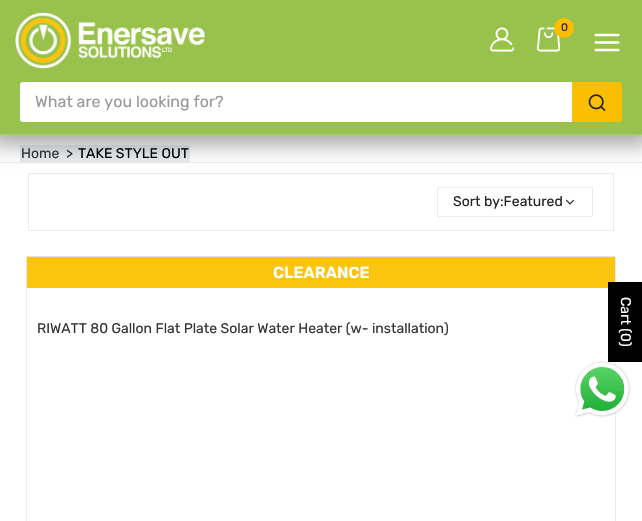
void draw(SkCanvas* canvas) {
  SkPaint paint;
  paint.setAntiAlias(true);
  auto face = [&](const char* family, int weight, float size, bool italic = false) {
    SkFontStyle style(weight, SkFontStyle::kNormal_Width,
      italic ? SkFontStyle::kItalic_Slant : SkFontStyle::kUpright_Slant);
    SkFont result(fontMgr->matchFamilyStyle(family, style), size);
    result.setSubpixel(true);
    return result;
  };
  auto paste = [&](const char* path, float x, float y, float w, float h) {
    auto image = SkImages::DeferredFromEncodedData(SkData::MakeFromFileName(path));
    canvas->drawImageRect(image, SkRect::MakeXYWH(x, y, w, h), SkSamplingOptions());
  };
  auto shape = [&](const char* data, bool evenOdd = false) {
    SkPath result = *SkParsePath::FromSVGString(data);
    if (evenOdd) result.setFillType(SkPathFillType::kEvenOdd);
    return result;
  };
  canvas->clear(0xffffffff);
  paint.setColor(0xffebebeb);
  canvas->drawRect(SkRect::MakeXYWH(0, 162, 642, 1), paint);
  paint.setColor(0xffe9ecef);
  canvas->drawRect(SkRect::MakeXYWH(20, 145, 170, 17), paint);
  paint.setStroke(true);
  paint.setStrokeWidth(1);
  paint.setColor(0xffebebeb);
  canvas->drawRect(SkRect::MakeXYWH(28.5f, 173.5f, 585, 57), paint);
  paint.setStroke(false);
  paint.setColor(0x59000000);
  paint.setMaskFilter(SkMaskFilter::MakeBlur(kNormal_SkBlurStyle, 10));
  canvas->drawRect(SkRect::MakeXYWH(-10, -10, 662, 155), paint);
  paint.setMaskFilter(nullptr);
  paint.setColor(0xff98c24b);
  canvas->drawRect(SkRect::MakeXYWH(0, 0, 642, 134), paint);
  paint.setColor(0xffa7cb66);
  canvas->drawRect(SkRect::MakeXYWH(0, 134, 642, 1), paint);
  paste("img/1.png", 15, 12, 190, 57);
  paste("img/2.png", 490, 27, 24, 25);
  paste("img/3.png", 537, 27, 24, 25);
  paint.setColor(0xfffcbe00);
  canvas->drawCircle(564, 28, 10, paint);
  paste("img/4.png", 594, 33, 26, 19);
  paint.setColor(0xffffffff);
  canvas->drawRect(SkRect::MakeXYWH(564, 82, 8, 40), paint);
  canvas->drawRoundRect(SkRect::MakeXYWH(20, 82, 547, 40), 3, 3, paint);
  paint.setColor(0xfffcbe00);
  canvas->drawPath(shape("M572 82H619C620.5 82 622 83.5 622 85V119C622 120.5 620.5 122 619 122H572Z"), paint);
  paste("img/5.png", 588, 94, 18, 17);
  paint.setStroke(true);
  paint.setColor(0xffebebeb);
  canvas->drawRoundRect(SkRect::MakeXYWH(437.5f, 187.5f, 155, 29), 1.5f, 1.5f, paint);
  paste("img/6.png", 566, 199, 8, 6);
  paint.setStroke(false);
  {
    const struct { float x, y, w, h; SkColor color; } items[] = {
      {26, 256, 590, 1, 0xffe2e2e2},
      {615, 256, 1, 265, 0xffebebeb},
      {26, 256, 1, 265, 0xffebebeb},
      {27, 257, 588, 31, 0xfffbc40f},
      {608, 282, 34, 80, 0xff000000},
    };
    for (auto [x, y, w, h, color] : items) {
      paint.setColor(color);
      canvas->drawRect(SkRect::MakeXYWH(x, y, w, h), paint);
    }
  }
  paste("img/7.png", 574, 361, 57, 57);
  auto f0 = face("Rubik", 400, 11);
  paint.setColor(0xff222222);
  canvas->drawString("0", 561, 31, f0, paint);
  auto f1 = face("Rubik", 400, 16);
  paint.setColor(0xff999999);
  canvas->drawString("What are you looking for?", 35, 107, f1, paint);
  auto f2 = face("Rubik", 400, 14);
  paint.setColor(0xff333333);
  canvas->drawString("Home", 21, 158, f2, paint);
  paint.setColor(0xff222222);
  canvas->drawString(">", 66, 158, f2, paint);
  paint.setColor(0xff000000);
  canvas->drawString("TAKE STYLE OUT", 78, 158, f2, paint);
  paint.setColor(0xff222222);
  canvas->drawString("Sort by:Featured", 453, 206, f2, paint);
  auto f3 = face("Rubik", 600, 16);
  paint.setColor(0xffffffff);
  canvas->drawString("CLEARANCE", 273, 278, f3, paint);
  paint.setColor(0xff333333);
  canvas->drawString("RIWATT 80 Gallon Flat Plate Solar Water Heater (w- installation)", 37, 333, f2, paint);
  paint.setColor(0xffffffff);
  canvas->save();
  canvas->rotate(90, 621, 297);
  canvas->drawString("Cart (0)", 621, 297, f2, paint);
  canvas->restore();
}
